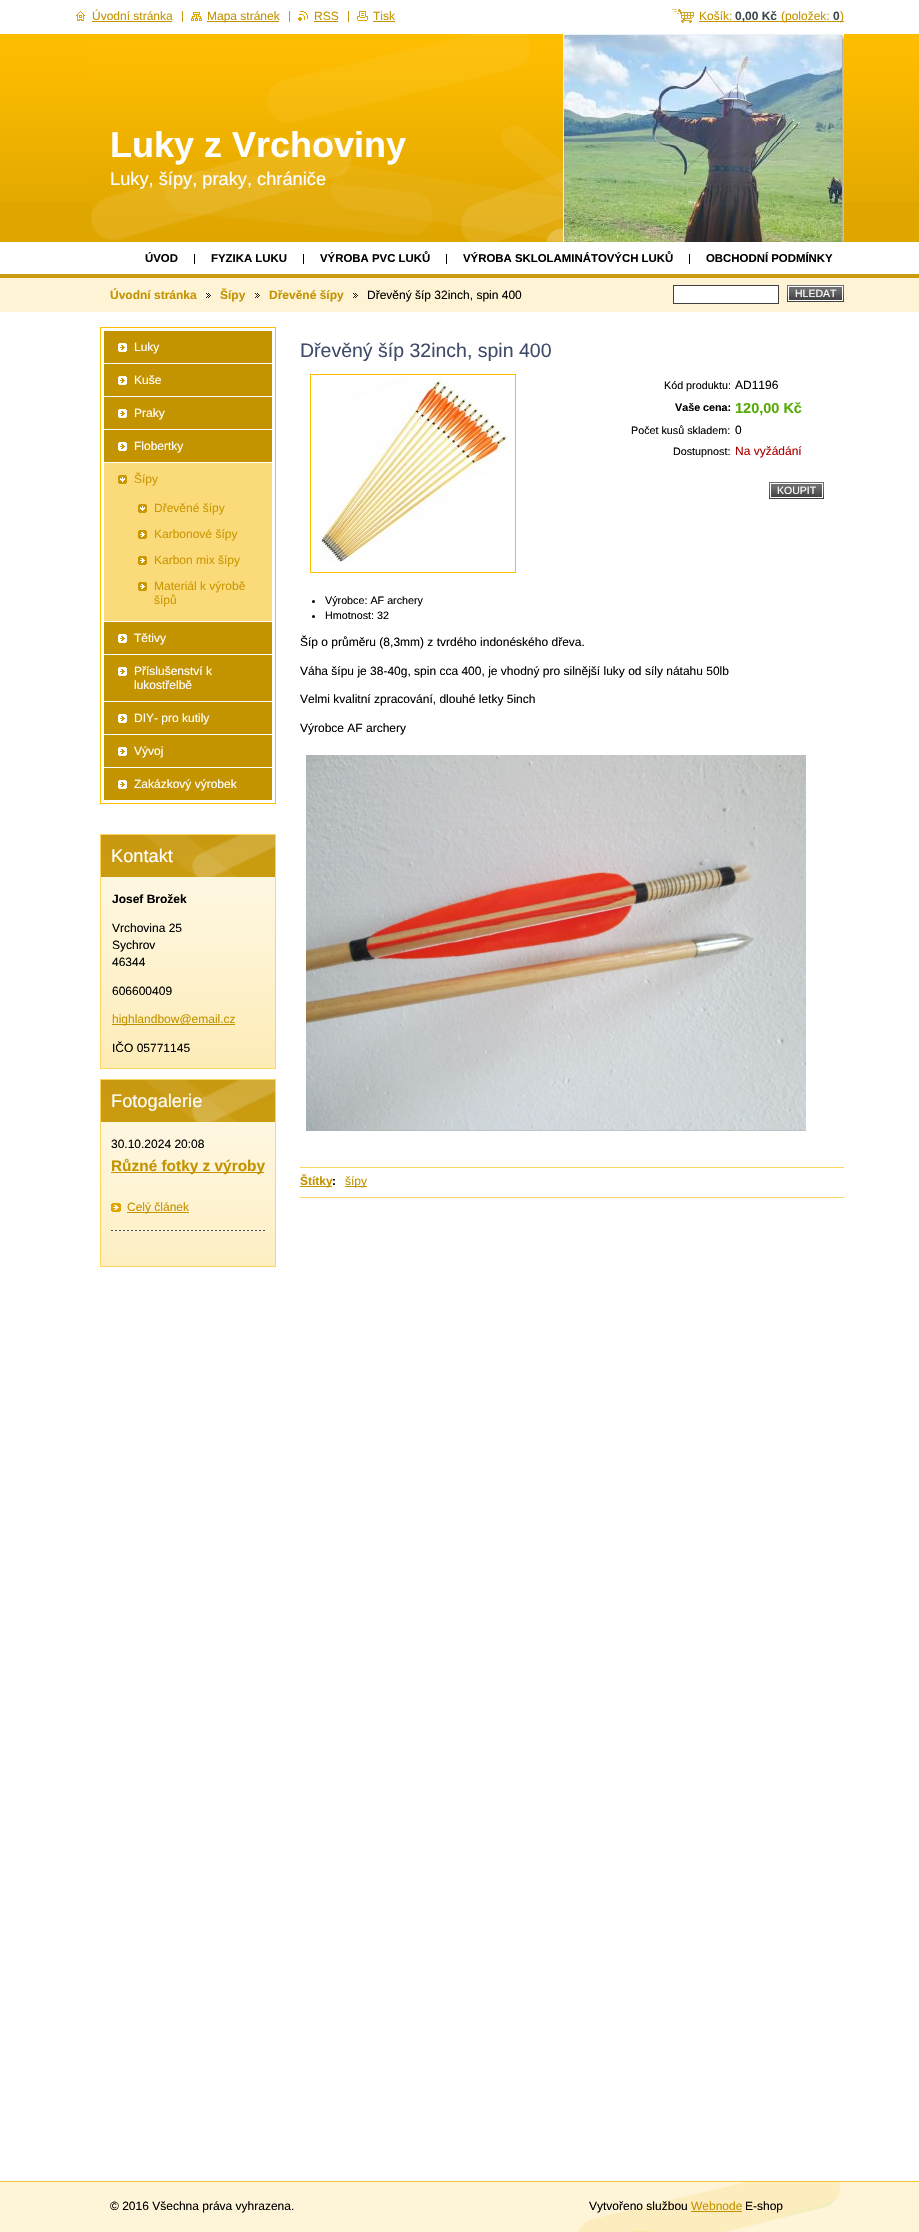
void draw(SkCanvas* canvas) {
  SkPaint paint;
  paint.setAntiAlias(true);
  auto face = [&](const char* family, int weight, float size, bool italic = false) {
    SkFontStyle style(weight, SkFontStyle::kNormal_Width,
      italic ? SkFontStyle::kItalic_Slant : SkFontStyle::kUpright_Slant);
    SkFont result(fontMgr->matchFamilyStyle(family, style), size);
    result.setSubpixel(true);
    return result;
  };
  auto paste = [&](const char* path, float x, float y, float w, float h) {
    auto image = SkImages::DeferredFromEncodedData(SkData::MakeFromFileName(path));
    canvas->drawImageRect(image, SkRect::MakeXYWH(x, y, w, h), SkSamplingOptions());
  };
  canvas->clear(0xffffffff);
  paste("img/1.png", 76, 11, 9, 10);
  paint.setColor(0xffc49300);
  canvas->drawRect(SkRect::MakeXYWH(92, 21, 80, 1), paint);
  paste("img/2.png", 191, 12, 11, 9);
  paint.setColor(0xffc79810);
  canvas->drawRect(SkRect::MakeXYWH(182, 11, 1, 11), paint);
  paint.setColor(0xffc49300);
  canvas->drawRect(SkRect::MakeXYWH(207, 21, 72, 1), paint);
  paste("img/3.png", 298, 11, 10, 10);
  paint.setColor(0xffc79810);
  canvas->drawRect(SkRect::MakeXYWH(289, 11, 1, 11), paint);
  paint.setColor(0xffc49300);
  canvas->drawRect(SkRect::MakeXYWH(314, 21, 24, 1), paint);
  paste("img/4.png", 357, 11, 11, 10);
  paint.setColor(0xffc79810);
  canvas->drawRect(SkRect::MakeXYWH(348, 11, 1, 11), paint);
  paint.setColor(0xffc49300);
  canvas->drawRect(SkRect::MakeXYWH(373, 21, 22, 1), paint);
  paste("img/5.png", 672, 9, 22, 14);
  canvas->drawRect(SkRect::MakeXYWH(699, 21, 78, 1), paint);
  paint.setColor(0xffdfa600);
  canvas->drawRect(SkRect::MakeXYWH(0, 203, 919, 39), paint);
  paste("img/6.png", 0, 34, 919, 169);
  paste("img/7.png", 91, 34, 472, 208);
  paste("img/8.png", 563, 34, 281, 208);
  {
    const struct { float x, y, w, h; SkColor color; } items[] = {
      {194, 254, 1, 10, 0xff000000},
      {303, 254, 1, 10, 0xff000000},
      {446, 254, 1, 10, 0xff000000},
      {689, 254, 1, 10, 0xff000000},
      {0, 278, 919, 34, 0xfffef3d4},
      {0, 274, 919, 4, 0xffca9a0f},
    };
    for (auto [x, y, w, h, color] : items) {
      paint.setColor(color);
      canvas->drawRect(SkRect::MakeXYWH(x, y, w, h), paint);
    }
  }
  paste("img/9.png", 206, 293, 5, 5);
  paste("img/9.png", 255, 293, 5, 5);
  paste("img/9.png", 353, 293, 5, 5);
  paint.setColor(0xffffffff);
  canvas->drawRect(SkRect::MakeXYWH(673.5f, 285.5f, 105, 18), paint);
  paint.setStroke(true);
  paint.setStrokeWidth(1);
  paint.setColor(0xff404040);
  canvas->drawRect(SkRect::MakeXYWH(673.5f, 285.5f, 105, 18), paint);
  paint.setStroke(false);
  canvas->drawRect(SkRect::MakeXYWH(787, 300, 57, 2), paint);
  paste("img/10.png", 787, 285, 57, 15);
  paste("img/11.png", 789, 287, 53, 13);
  paint.setStroke(true);
  paint.setColor(0xffffffff);
  canvas->drawRect(SkRect::MakeXYWH(788.5f, 286.5f, 54, 14), paint);
  paint.setColor(0xffffbd00);
  canvas->drawRect(SkRect::MakeXYWH(100.5f, 327.5f, 175, 476), paint);
  paint.setStroke(false);
  paint.setColor(0xffc49300);
  canvas->drawRect(SkRect::MakeXYWH(104, 331, 168, 32), paint);
  paste("img/12.png", 118, 343, 9, 9);
  canvas->drawRect(SkRect::MakeXYWH(104, 364, 168, 32), paint);
  paste("img/12.png", 118, 376, 9, 9);
  canvas->drawRect(SkRect::MakeXYWH(104, 397, 168, 32), paint);
  paste("img/12.png", 118, 409, 9, 9);
  canvas->drawRect(SkRect::MakeXYWH(104, 430, 168, 32), paint);
  paste("img/12.png", 118, 442, 9, 9);
  paint.setColor(0xfffbda7a);
  canvas->drawRect(SkRect::MakeXYWH(104, 463, 168, 158), paint);
  paste("img/13.png", 118, 475, 9, 9);
  paste("img/13.png", 138, 504, 9, 9);
  paste("img/14.png", 138, 530, 9, 9);
  paste("img/14.png", 138, 556, 9, 9);
  paste("img/14.png", 138, 582, 9, 9);
  paint.setColor(0xffc49300);
  canvas->drawRect(SkRect::MakeXYWH(104, 622, 168, 32), paint);
  paste("img/12.png", 118, 634, 9, 9);
  canvas->drawRect(SkRect::MakeXYWH(104, 655, 168, 46), paint);
  paste("img/12.png", 118, 667, 9, 9);
  canvas->drawRect(SkRect::MakeXYWH(104, 702, 168, 32), paint);
  paste("img/12.png", 118, 714, 9, 9);
  canvas->drawRect(SkRect::MakeXYWH(104, 735, 168, 32), paint);
  paste("img/12.png", 118, 747, 9, 9);
  canvas->drawRect(SkRect::MakeXYWH(104, 768, 168, 32), paint);
  paste("img/12.png", 118, 780, 9, 9);
  paste("img/15.png", 101, 877, 174, 191);
  paint.setStroke(true);
  paint.setColor(0xfffed763);
  canvas->drawRect(SkRect::MakeXYWH(100.5f, 834.5f, 175, 234), paint);
  paste("img/16.png", 101, 835, 174, 42);
  paint.setStroke(false);
  paint.setColor(0xffc49300);
  canvas->drawRect(SkRect::MakeXYWH(112, 1024, 123, 1), paint);
  paste("img/17.png", 101, 1122, 174, 144);
  paint.setStroke(true);
  paint.setColor(0xfffed763);
  canvas->drawRect(SkRect::MakeXYWH(100.5f, 1079.5f, 175, 187), paint);
  paste("img/16.png", 101, 1080, 174, 42);
  paint.setStroke(false);
  paint.setColor(0xffc49300);
  canvas->drawRect(SkRect::MakeXYWH(111, 1172, 153, 1), paint);
  paste("img/18.png", 111, 1203, 10, 9);
  canvas->drawRect(SkRect::MakeXYWH(127, 1212, 62, 1), paint);
  paste("img/19.png", 111, 1230, 154, 1);
  paint.setColor(0xff404040);
  canvas->drawRect(SkRect::MakeXYWH(769, 497, 55, 2), paint);
  paste("img/20.png", 769, 482, 55, 15);
  paste("img/21.png", 771, 484, 51, 13);
  paint.setStroke(true);
  paint.setColor(0xffffffff);
  canvas->drawRect(SkRect::MakeXYWH(770.5f, 483.5f, 52, 14), paint);
  paint.setColor(0xffffbd00);
  canvas->drawRect(SkRect::MakeXYWH(310.5f, 374.5f, 205, 198), paint);
  paste("img/22.png", 313, 377, 197, 188);
  paint.setStroke(false);
  paint.setColor(0xff000000);
  canvas->drawCircle(313.5f, 601.5f, 1.5f, paint);
  canvas->drawCircle(313.5f, 616.5f, 1.5f, paint);
  paste("img/23.png", 306, 755, 500, 376);
  {
    const struct { float x, y, w, h; SkColor color; } items[] = {
      {300, 1167, 544, 1, 0xfffed763},
      {300, 1197, 544, 1, 0xfffed763},
      {300, 1186, 32, 1, 0xffc49300},
      {345, 1186, 22, 1, 0xffc49300},
      {0, 2182, 919, 50, 0xfffef4d7},
      {0, 2181, 919, 1, 0xfffbc732},
    };
    for (auto [x, y, w, h, color] : items) {
      paint.setColor(color);
      canvas->drawRect(SkRect::MakeXYWH(x, y, w, h), paint);
    }
  }
  paste("img/24.png", 578, 2182, 263, 50);
  paint.setColor(0xffc49300);
  canvas->drawRect(SkRect::MakeXYWH(691, 2211, 51, 1), paint);
  auto f0 = face("Liberation Sans", 400, 12);
  {
    const struct { const char* s; float x, y; } items[] = {
      {"Úvodní stránka", 92, 20},
      {"Mapa stránek", 207, 20},
      {"RSS", 314, 20},
      {"Tisk", 373, 20},
      {"Košík:", 699, 20},
    };
    for (auto [s, x, y] : items) {
      canvas->drawString(s, x, y, f0, paint);
    }
  }
  auto f1 = face("Liberation Sans", 700, 12);
  paint.setColor(0xff3e4951);
  canvas->drawString("0,00 Kč", 735, 20, f1, paint);
  paint.setColor(0xffc49300);
  canvas->drawRect(SkRect::MakeXYWH(777, 21, 67, 1), paint);
  canvas->drawString("(položek:", 781, 20, f0, paint);
  paint.setColor(0xff3e4951);
  canvas->drawString("0", 833, 20, f1, paint);
  paint.setColor(0xffc49300);
  canvas->drawString(")", 840, 20, f0, paint);
  auto f2 = face("Liberation Sans", 700, 36);
  paint.setColor(0xffffffff);
  canvas->drawString("Luky z Vrchoviny", 110, 157, f2, paint);
  auto f3 = face("Liberation Sans", 400, 18.25f);
  canvas->drawString("Luky, šípy, praky, chrániče", 110, 185, f3, paint);
  auto f4 = face("Liberation Sans", 700, 11.4f);
  paint.setColor(0xff000000);
  {
    const struct { const char* s; float x, y; } items[] = {
      {"ÚVOD", 145, 262},
      {"FYZIKA LUKU", 211, 262},
      {"VÝROBA PVC LUKŮ", 320, 262},
      {"VÝROBA SKLOLAMINÁTOVÝCH LUKŮ", 463, 262},
      {"OBCHODNÍ PODMÍNKY", 706, 262},
    };
    for (auto [s, x, y] : items) {
      canvas->drawString(s, x, y, f4, paint);
    }
  }
  paint.setColor(0xffc49300);
  {
    const struct { const char* s; float x, y; } items[] = {
      {"Úvodní stránka", 110, 299},
      {"Šípy", 220, 299},
      {"Dřevěné šípy", 269, 299},
    };
    for (auto [s, x, y] : items) {
      canvas->drawString(s, x, y, f1, paint);
    }
  }
  paint.setColor(0xff000000);
  canvas->drawString("Dřevěný šíp 32inch, spin 400", 367, 299, f0, paint);
  auto f5 = face("Liberation Sans", 400, 10.5f);
  paint.setColor(0xffffffff);
  canvas->drawString("HLEDAT", 795, 297, f5, paint);
  {
    const struct { const char* s; float x, y; } items[] = {
      {"Luky", 134, 351},
      {"Kuše", 134, 384},
      {"Praky", 134, 417},
      {"Flobertky", 134, 450},
    };
    for (auto [s, x, y] : items) {
      canvas->drawString(s, x, y, f0, paint);
    }
  }
  paint.setColor(0xffcb9802);
  {
    const struct { const char* s; float x, y; } items[] = {
      {"Šípy", 134, 483},
      {"Dřevěné šípy", 154, 512},
      {"Karbonové šípy", 154, 538},
      {"Karbon mix šípy", 154, 564},
      {"Materiál k výrobě", 154, 590},
      {"šípů", 154, 604},
    };
    for (auto [s, x, y] : items) {
      canvas->drawString(s, x, y, f0, paint);
    }
  }
  paint.setColor(0xffffffff);
  {
    const struct { const char* s; float x, y; } items[] = {
      {"Tětivy", 134, 642},
      {"Příslušenství k", 134, 675},
      {"lukostřelbě", 134, 689},
      {"DIY- pro kutily", 134, 722},
      {"Vývoj", 134, 755},
      {"Zakázkový výrobek", 134, 788},
    };
    for (auto [s, x, y] : items) {
      canvas->drawString(s, x, y, f0, paint);
    }
  }
  canvas->drawString("Kontakt", 111, 862, f3, paint);
  paint.setColor(0xff000000);
  canvas->drawString("Josef Brožek", 112, 903, f1, paint);
  {
    const struct { const char* s; float x, y; } items[] = {
      {"Vrchovina 25", 112, 932},
      {"Sychrov", 112, 949},
      {"46344", 112, 966},
      {"606600409", 112, 995},
    };
    for (auto [s, x, y] : items) {
      canvas->drawString(s, x, y, f0, paint);
    }
  }
  paint.setColor(0xffc49300);
  canvas->drawString("highlandbow@email.cz", 112, 1023, f0, paint);
  paint.setColor(0xff000000);
  canvas->drawString("IČO 05771145", 112, 1052, f0, paint);
  paint.setColor(0xffffffff);
  canvas->drawString("Fotogalerie", 111, 1107, f3, paint);
  paint.setColor(0xff000000);
  canvas->drawString("30.10.2024 20:08", 111, 1148, f0, paint);
  auto f6 = face("Liberation Sans", 700, 15.4f);
  paint.setColor(0xffc49300);
  canvas->drawString("Různé fotky z výroby", 111, 1171, f6, paint);
  canvas->drawString("Celý článek", 127, 1211, f0, paint);
  auto f7 = face("Liberation Sans", 400, 19.5f);
  paint.setColor(0xff404b69);
  canvas->drawString("Dřevěný šíp 32inch, spin 400", 300, 357, f7, paint);
  auto f8 = face("Liberation Sans", 400, 10.75f);
  paint.setColor(0xff000000);
  canvas->drawString("Kód produktu:", 664, 389, f8, paint);
  canvas->drawString("AD1196", 735, 389, f0, paint);
  auto f9 = face("Liberation Sans", 700, 10.75f);
  canvas->drawString("Vaše cena:", 675, 411, f9, paint);
  auto f10 = face("Liberation Sans", 700, 14.5f);
  paint.setColor(0xff56aa04);
  canvas->drawString("120,00 Kč", 735, 413, f10, paint);
  paint.setColor(0xff000000);
  canvas->drawString("Počet kusů skladem:", 631, 434, f8, paint);
  canvas->drawString("0", 735, 434, f0, paint);
  canvas->drawString("Dostupnost:", 673, 455, f8, paint);
  paint.setColor(0xffaf0000);
  canvas->drawString("Na vyžádání", 735, 455, f0, paint);
  paint.setColor(0xffffffff);
  canvas->drawString("KOUPIT", 777, 494, f5, paint);
  paint.setColor(0xff000000);
  canvas->drawString("Výrobce: AF archery", 325, 604, f8, paint);
  canvas->drawString("Hmotnost: 32", 325, 619, f8, paint);
  {
    const struct { const char* s; float x, y; } items[] = {
      {"Šíp o průměru (8,3mm) z tvrdého indonéského dřeva.", 300, 646},
      {"Váha šípu je 38-40g, spin cca 400, je vhodný pro silnější luky od síly nátahu 50lb", 300, 675},
      {"Velmi kvalitní zpracování, dlouhé letky 5inch", 300, 703},
      {"Výrobce AF archery", 300, 732},
    };
    for (auto [s, x, y] : items) {
      canvas->drawString(s, x, y, f0, paint);
    }
  }
  paint.setColor(0xffc49300);
  canvas->drawString("Štítky", 300, 1185, f1, paint);
  paint.setColor(0xff000000);
  canvas->drawString(":", 332, 1185, f1, paint);
  paint.setColor(0xffc49300);
  canvas->drawString("šípy", 345, 1185, f0, paint);
  canvas->save();
  canvas->clipRect(SkRect::MakeXYWH(110, 2199, 470, 15));
  paint.setColor(0xff000000);
  canvas->drawString("© 2016 Všechna práva vyhrazena.", 110, 2210, f0, paint);
  canvas->restore();
  canvas->drawString("Vytvořeno službou", 589, 2210, f0, paint);
  paint.setColor(0xffc49300);
  canvas->drawString("Webnode", 691, 2210, f0, paint);
  paint.setColor(0xff000000);
  canvas->drawString("E-shop", 745, 2210, f0, paint);
}
